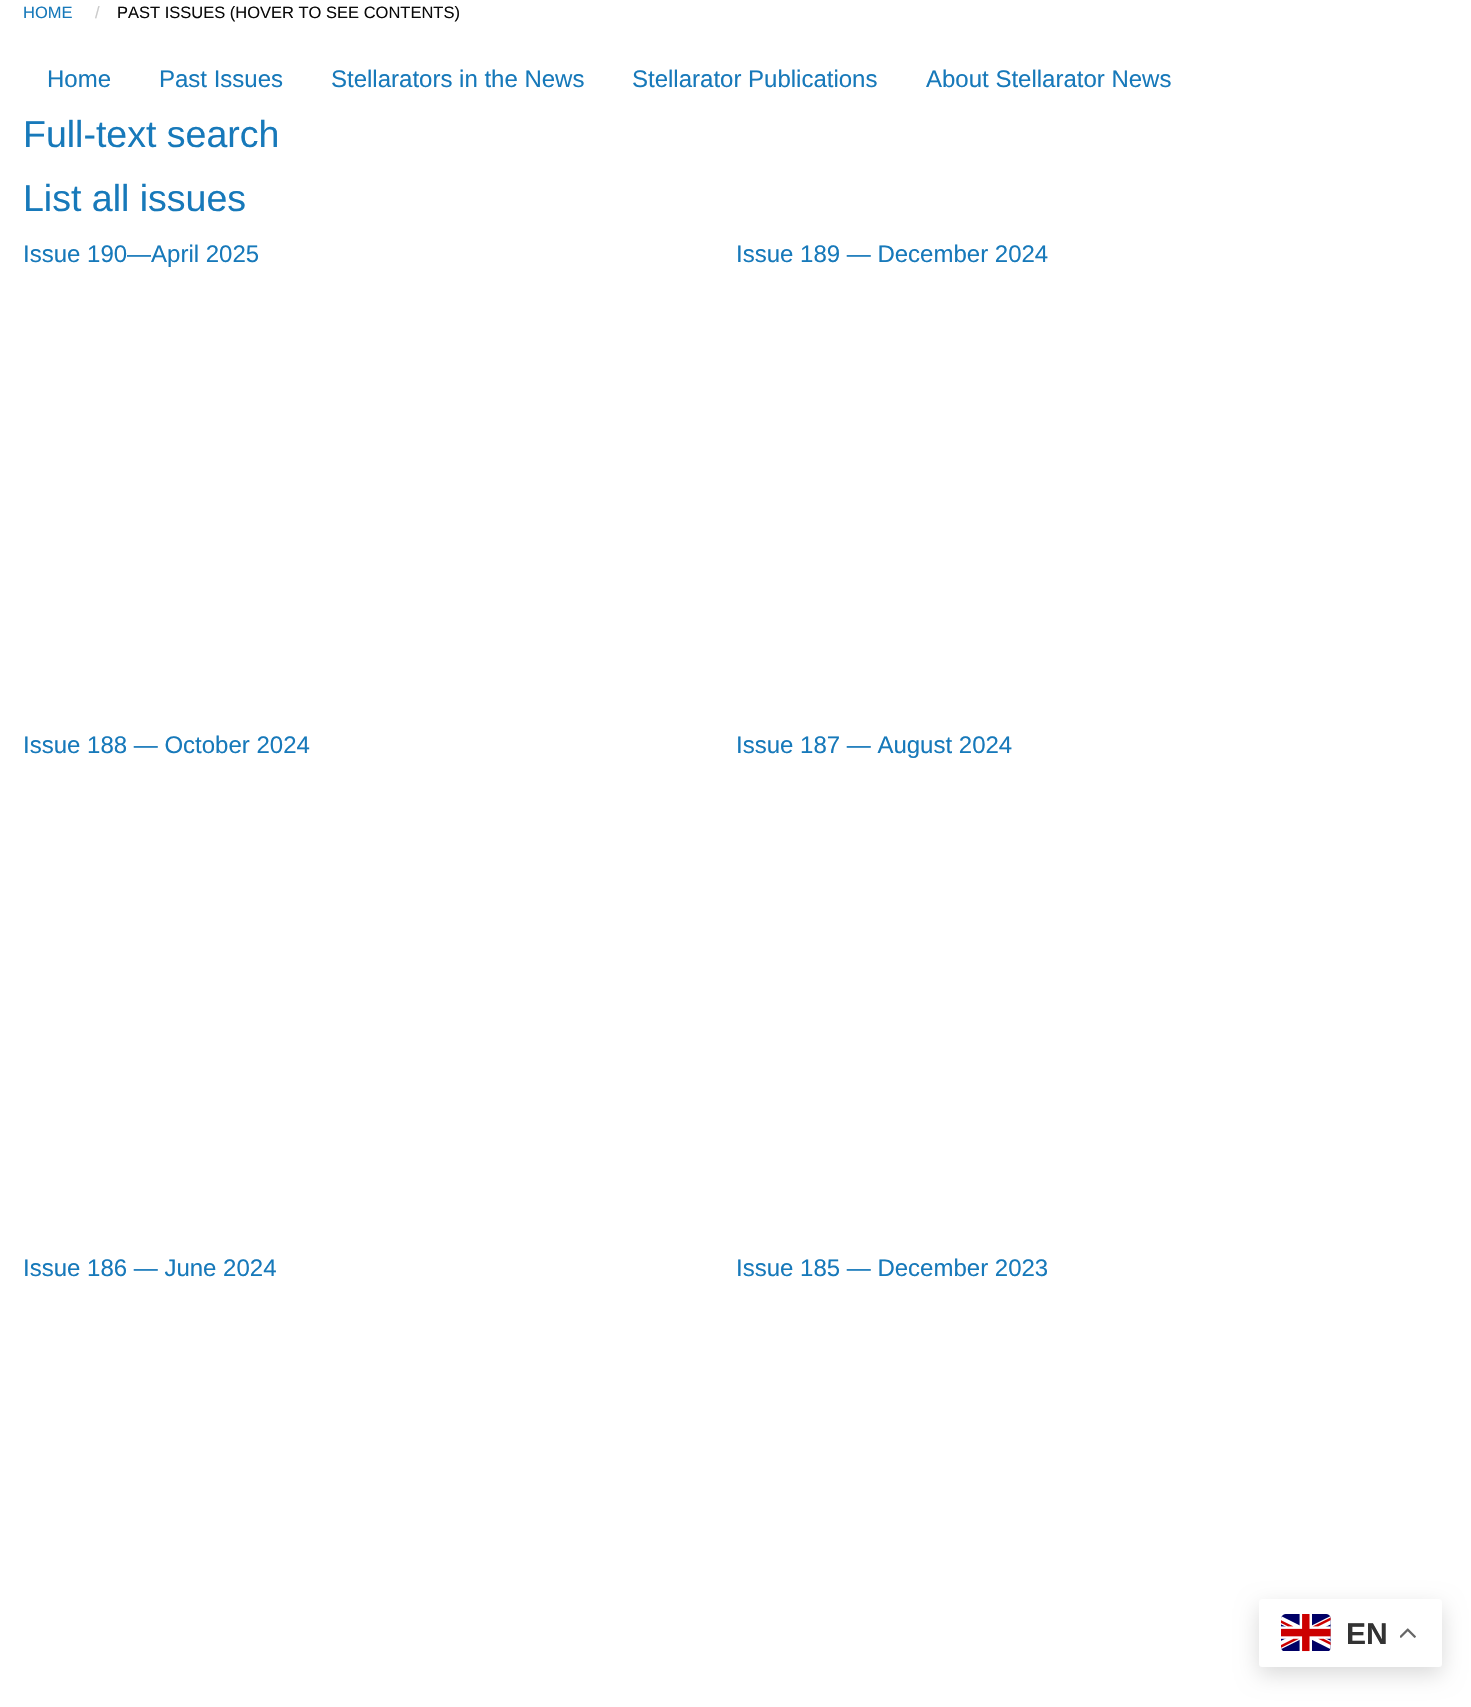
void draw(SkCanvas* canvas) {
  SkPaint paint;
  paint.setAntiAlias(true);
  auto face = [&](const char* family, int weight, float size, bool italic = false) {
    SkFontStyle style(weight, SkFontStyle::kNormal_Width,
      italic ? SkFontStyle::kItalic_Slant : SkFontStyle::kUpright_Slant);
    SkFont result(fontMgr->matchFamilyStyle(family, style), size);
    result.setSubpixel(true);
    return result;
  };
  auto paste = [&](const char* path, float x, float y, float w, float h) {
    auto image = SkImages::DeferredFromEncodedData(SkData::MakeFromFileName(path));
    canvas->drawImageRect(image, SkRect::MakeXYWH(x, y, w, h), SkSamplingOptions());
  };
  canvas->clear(0xffffffff);
  paint.setColor(0x26000000);
  paint.setMaskFilter(SkMaskFilter::MakeBlur(kNormal_SkBlurStyle, 11));
  canvas->drawRoundRect(SkRect::MakeXYWH(1259, 1607, 183, 67), 3, 3, paint);
  paint.setMaskFilter(nullptr);
  paint.setColor(0xffffffff);
  canvas->drawRoundRect(SkRect::MakeXYWH(1259, 1599, 183, 68), 3, 3, paint);
  paste("img/1.png", 1281, 1614, 50, 38);
  paste("img/2.png", 1400, 1628, 16, 10);
  auto f0 = face("Liberation Sans", 400, 16.5f);
  paint.setColor(0xff1779ba);
  canvas->drawString("HOME", 23, 18, f0, paint);
  paint.setColor(0xffcacaca);
  canvas->drawString("/", 95, 18, f0, paint);
  paint.setColor(0xff0a0a0a);
  canvas->drawString("PAST ISSUES (HOVER TO SEE CONTENTS)", 117, 18, f0, paint);
  auto f1 = face("Liberation Sans", 400, 24);
  paint.setColor(0xff1779ba);
  {
    const struct { const char* s; float x, y; } items[] = {
      {"Home", 47, 87},
      {"Past Issues", 159, 87},
      {"Stellarators in the News", 331, 87},
      {"Stellarator Publications", 632, 87},
      {"About Stellarator News", 926, 87},
    };
    for (auto [s, x, y] : items) {
      canvas->drawString(s, x, y, f1, paint);
    }
  }
  auto f2 = face("Liberation Sans", 400, 37.5f);
  canvas->drawString("Full-text search", 23, 147, f2, paint);
  canvas->drawString("List all issues", 23, 211, f2, paint);
  {
    const struct { const char* s; float x, y; } items[] = {
      {"Issue 190—April 2025", 23, 262},
      {"Issue 189 — December 2024", 736, 262},
      {"Issue 188 — October 2024", 23, 753},
      {"Issue 187 — August 2024", 736, 753},
      {"Issue 186 — June 2024", 23, 1276},
      {"Issue 185 — December 2023", 736, 1276},
    };
    for (auto [s, x, y] : items) {
      canvas->drawString(s, x, y, f1, paint);
    }
  }
  auto f3 = face("Liberation Sans", 700, 30);
  paint.setColor(0xff333333);
  canvas->drawString("EN", 1346, 1644, f3, paint);
}
